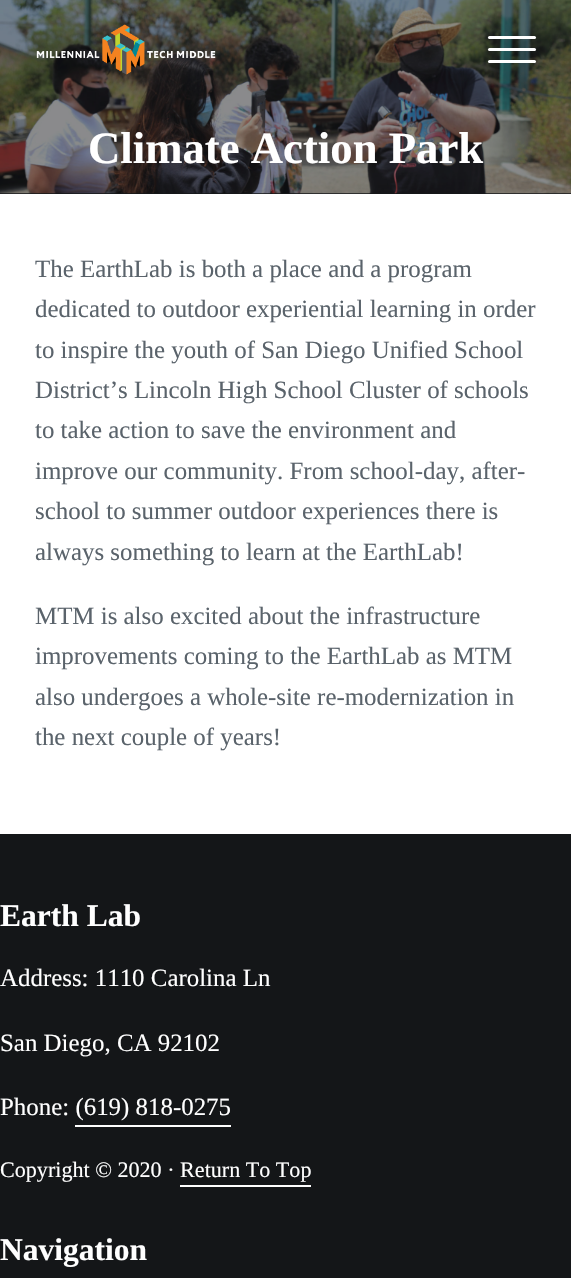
void draw(SkCanvas* canvas) {
  SkPaint paint;
  paint.setAntiAlias(true);
  auto face = [&](const char* family, int weight, float size, bool italic = false) {
    SkFontStyle style(weight, SkFontStyle::kNormal_Width,
      italic ? SkFontStyle::kItalic_Slant : SkFontStyle::kUpright_Slant);
    SkFont result(fontMgr->matchFamilyStyle(family, style), size);
    result.setSubpixel(true);
    return result;
  };
  auto paste = [&](const char* path, float x, float y, float w, float h) {
    auto image = SkImages::DeferredFromEncodedData(SkData::MakeFromFileName(path));
    canvas->drawImageRect(image, SkRect::MakeXYWH(x, y, w, h), SkSamplingOptions());
  };
  canvas->clear(0xffffffff);
  paint.setColor(0xff141618);
  canvas->drawRect(SkRect::MakeXYWH(0, 193, 571, 1), paint);
  paste("img/2.png", 0, 0, 571, 194);
  paste("img/1.png", 36, 24, 180, 51);
  paint.setColor(0xffffffff);
  canvas->drawRoundRect(SkRect::MakeXYWH(488, 48, 48, 3), 1.5f, 1.5f, paint);
  canvas->drawRoundRect(SkRect::MakeXYWH(488, 36, 48, 3), 1.5f, 1.5f, paint);
  canvas->drawRoundRect(SkRect::MakeXYWH(488, 60, 48, 3), 1.5f, 1.5f, paint);
  {
    const struct { float x, y, w, h; SkColor color; } items[] = {
      {0, 834, 571, 444, 0xff141618},
      {75, 1125, 156, 2, 0xffffffff},
      {180, 1185, 131, 2, 0xffffffff},
    };
    for (auto [x, y, w, h, color] : items) {
      paint.setColor(color);
      canvas->drawRect(SkRect::MakeXYWH(x, y, w, h), paint);
    }
  }
  auto f0 = face("Liberation Serif", 700, 44.75f);
  canvas->drawString("Climate Action Park", 88, 163, f0, paint);
  auto f1 = face("Liberation Serif", 400, 24.9f);
  paint.setColor(0xff5a636b);
  {
    const struct { const char* s; float x, y; } items[] = {
      {"The EarthLab is both a place and a program", 35, 277},
      {"dedicated to outdoor experiential learning in order", 35, 317},
      {"to inspire the youth of San Diego Unified School", 35, 358},
      {"District’s Lincoln High School Cluster of schools", 35, 398},
      {"to take action to save the environment and", 35, 438},
      {"improve our community. From school-day, after-", 35, 479},
      {"school to summer outdoor experiences there is", 35, 519},
      {"always something to learn at the EarthLab!", 35, 560},
      {"MTM is also excited about the infrastructure", 35, 624},
      {"improvements coming to the EarthLab as MTM", 35, 664},
      {"also undergoes a whole-site re-modernization in", 35, 705},
      {"the next couple of years!", 35, 745},
    };
    for (auto [s, x, y] : items) {
      canvas->drawString(s, x, y, f1, paint);
    }
  }
  auto f2 = face("Liberation Serif", 700, 31.5f);
  paint.setColor(0xffffffff);
  canvas->drawString("Earth Lab", 0, 926, f2, paint);
  {
    const struct { const char* s; float x, y; } items[] = {
      {"Address: 1110 Carolina Ln", 0, 986},
      {"San Diego, CA 92102", 0, 1051},
      {"Phone: (619) 818-0275", 0, 1115},
    };
    for (auto [s, x, y] : items) {
      canvas->drawString(s, x, y, f1, paint);
    }
  }
  auto f3 = face("Liberation Serif", 400, 22.1f);
  canvas->drawString("Copyright © 2020 · Return To Top", 0, 1177, f3, paint);
  canvas->drawString("Navigation", 0, 1260, f2, paint);
}
